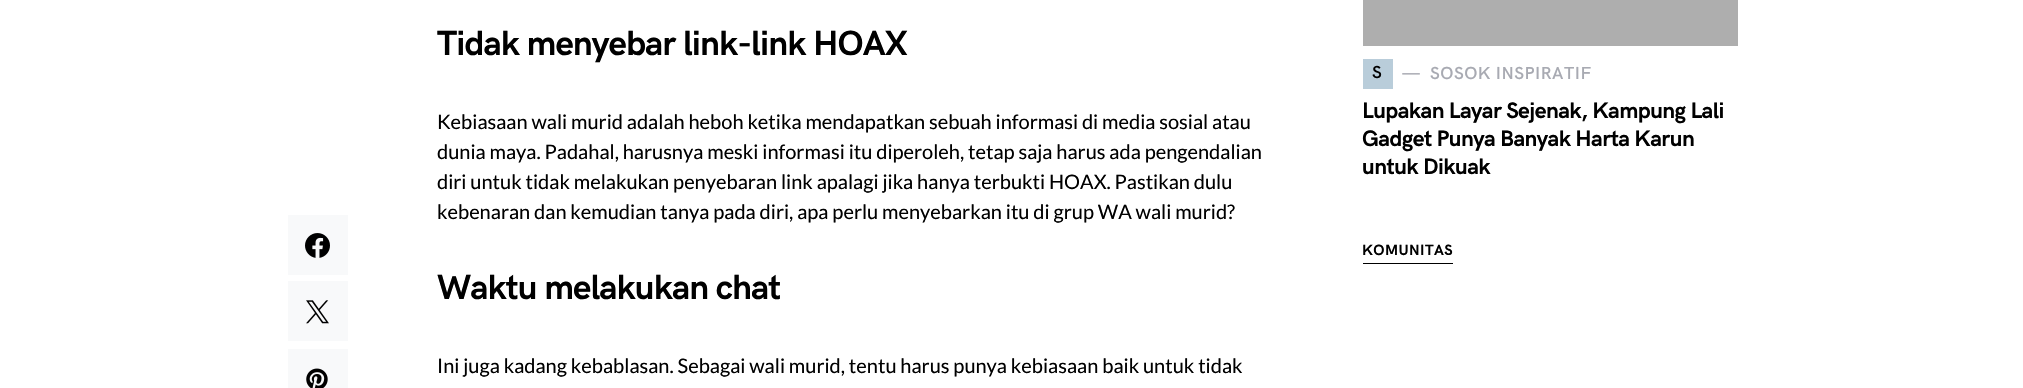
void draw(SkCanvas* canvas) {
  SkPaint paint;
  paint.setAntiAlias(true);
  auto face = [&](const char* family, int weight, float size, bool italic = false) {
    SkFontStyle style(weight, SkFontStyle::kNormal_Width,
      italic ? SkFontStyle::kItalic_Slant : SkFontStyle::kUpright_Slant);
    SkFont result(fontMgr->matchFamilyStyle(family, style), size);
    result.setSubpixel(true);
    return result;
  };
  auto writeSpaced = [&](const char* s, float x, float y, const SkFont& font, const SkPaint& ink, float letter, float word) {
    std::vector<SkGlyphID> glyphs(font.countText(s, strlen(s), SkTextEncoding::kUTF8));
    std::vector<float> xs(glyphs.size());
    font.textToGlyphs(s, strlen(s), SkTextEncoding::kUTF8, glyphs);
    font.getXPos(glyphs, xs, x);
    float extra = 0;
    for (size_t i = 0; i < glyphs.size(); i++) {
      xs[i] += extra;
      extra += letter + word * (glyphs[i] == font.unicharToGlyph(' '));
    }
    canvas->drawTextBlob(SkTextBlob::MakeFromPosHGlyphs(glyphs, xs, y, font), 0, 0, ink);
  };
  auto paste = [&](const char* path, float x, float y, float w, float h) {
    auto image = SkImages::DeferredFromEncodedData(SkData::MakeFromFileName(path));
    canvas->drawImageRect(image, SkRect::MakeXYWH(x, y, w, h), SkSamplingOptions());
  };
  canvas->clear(0xffffffff);
  paint.setColor(0xfff8f9fa);
  canvas->drawRect(SkRect::MakeXYWH(288, 215, 60, 60), paint);
  paste("img/1.png", 305, 233, 25, 25);
  canvas->drawRect(SkRect::MakeXYWH(288, 281, 60, 60), paint);
  paste("img/2.png", 306, 300, 23, 24);
  canvas->drawRect(SkRect::MakeXYWH(288, 349, 60, 39), paint);
  paste("img/3.png", 306, 368, 22, 20);
  {
    const struct { float x, y, w, h; SkColor color; } items[] = {
      {1363, 0, 375, 46, 0xffaeaeae},
      {1363, 59, 30, 30, 0xffb9cdda},
      {1363, 263, 90, 1, 0xff000000},
    };
    for (auto [x, y, w, h, color] : items) {
      paint.setColor(color);
      canvas->drawRect(SkRect::MakeXYWH(x, y, w, h), paint);
    }
  }
  auto f0 = face("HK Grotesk", 700, 35);
  writeSpaced("Tidak menyebar link-link HOAX", 437, 55, f0, paint, -0.9f, 0);
  auto f1 = face("Lato", 400, 20);
  {
    const struct { const char* s; float x, y; } items[] = {
      {"Kebiasaan wali murid adalah heboh ketika mendapatkan sebuah informasi di media sosial atau", 437, 129},
      {"dunia maya. Padahal, harusnya meski informasi itu diperoleh, tetap saja harus ada pengendalian", 437, 159},
      {"diri untuk tidak melakukan penyebaran link apalagi jika hanya terbukti HOAX. Pastikan dulu", 437, 189},
      {"kebenaran dan kemudian tanya pada diri, apa perlu menyebarkan itu di grup WA wali murid?", 437, 219},
    };
    for (auto [s, x, y] : items) {
      canvas->drawString(s, x, y, f1, paint);
    }
  }
  writeSpaced("Waktu melakukan chat", 437, 299, f0, paint, -0.9f, 0);
  canvas->drawString("Ini juga kadang kebablasan. Sebagai wali murid, tentu harus punya kebiasaan baik untuk tidak", 437, 373, f1, paint);
  auto f2 = face("HK Grotesk", 600, 17.5f);
  writeSpaced("S", 1372, 78, f2, paint, 0.5f, 0);
  paint.setColor(0xffa8aab2);
  writeSpaced("—", 1402, 79, f2, paint, 0.5f, 0);
  writeSpaced("SOSOK INSPIRATIF", 1430, 79, f2, paint, 0.5f, 0);
  auto f3 = face("HK Grotesk", 700, 22.5f);
  paint.setColor(0xff000000);
  {
    const struct { const char* s; float x, y; } items[] = {
      {"Lupakan Layar Sejenak, Kampung Lali", 1362, 118},
      {"Gadget Punya Banyak Harta Karun", 1362, 146},
      {"untuk Dikuak", 1362, 174},
    };
    for (auto [s, x, y] : items) {
      writeSpaced(s, x, y, f3, paint, -0.55f, 0);
    }
  }
  auto f4 = face("HK Grotesk", 700, 15);
  writeSpaced("KOMUNITAS", 1362, 255, f4, paint, 0.4f, 0);
}
